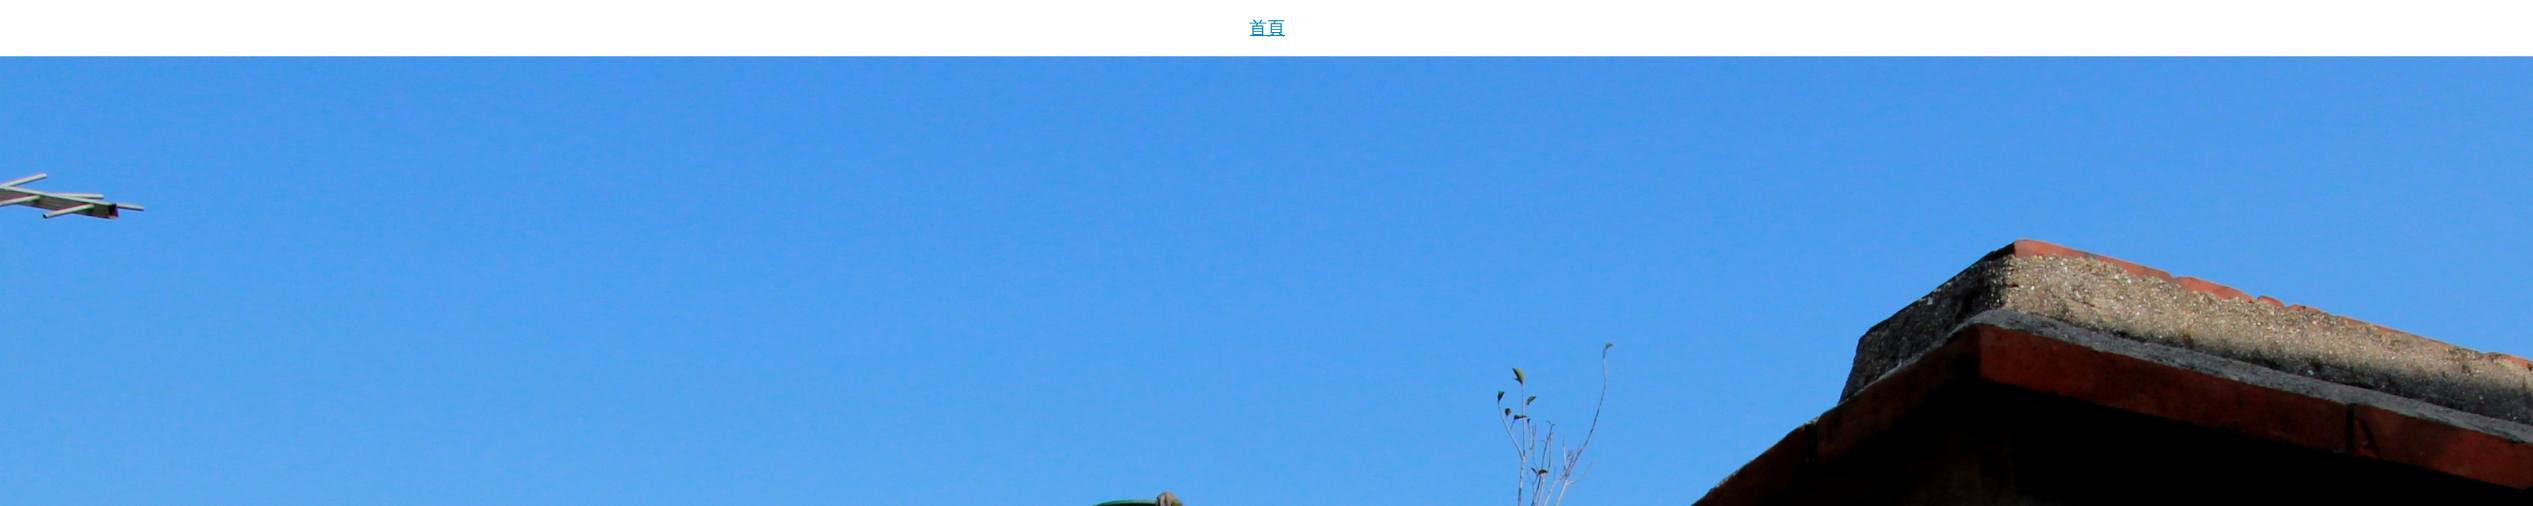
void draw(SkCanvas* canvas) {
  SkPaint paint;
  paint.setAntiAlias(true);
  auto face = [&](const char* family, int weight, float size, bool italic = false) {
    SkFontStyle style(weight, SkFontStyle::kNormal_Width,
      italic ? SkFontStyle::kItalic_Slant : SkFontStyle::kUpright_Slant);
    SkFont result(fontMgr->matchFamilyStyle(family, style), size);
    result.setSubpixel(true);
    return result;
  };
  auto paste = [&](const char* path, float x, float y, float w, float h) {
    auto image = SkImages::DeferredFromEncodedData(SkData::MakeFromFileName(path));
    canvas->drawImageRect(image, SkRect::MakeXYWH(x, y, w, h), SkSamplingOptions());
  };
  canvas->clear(0xffffffff);
  paint.setColor(0xff0088cc);
  canvas->drawRect(SkRect::MakeXYWH(1250, 35, 35, 1), paint);
  paste("img/1.png", 0, 56, 2533, 450);
  auto f0 = face("WenQuanYi Zen Hei", 500, 18);
  canvas->drawString("首頁", 1249, 34, f0, paint);
}
